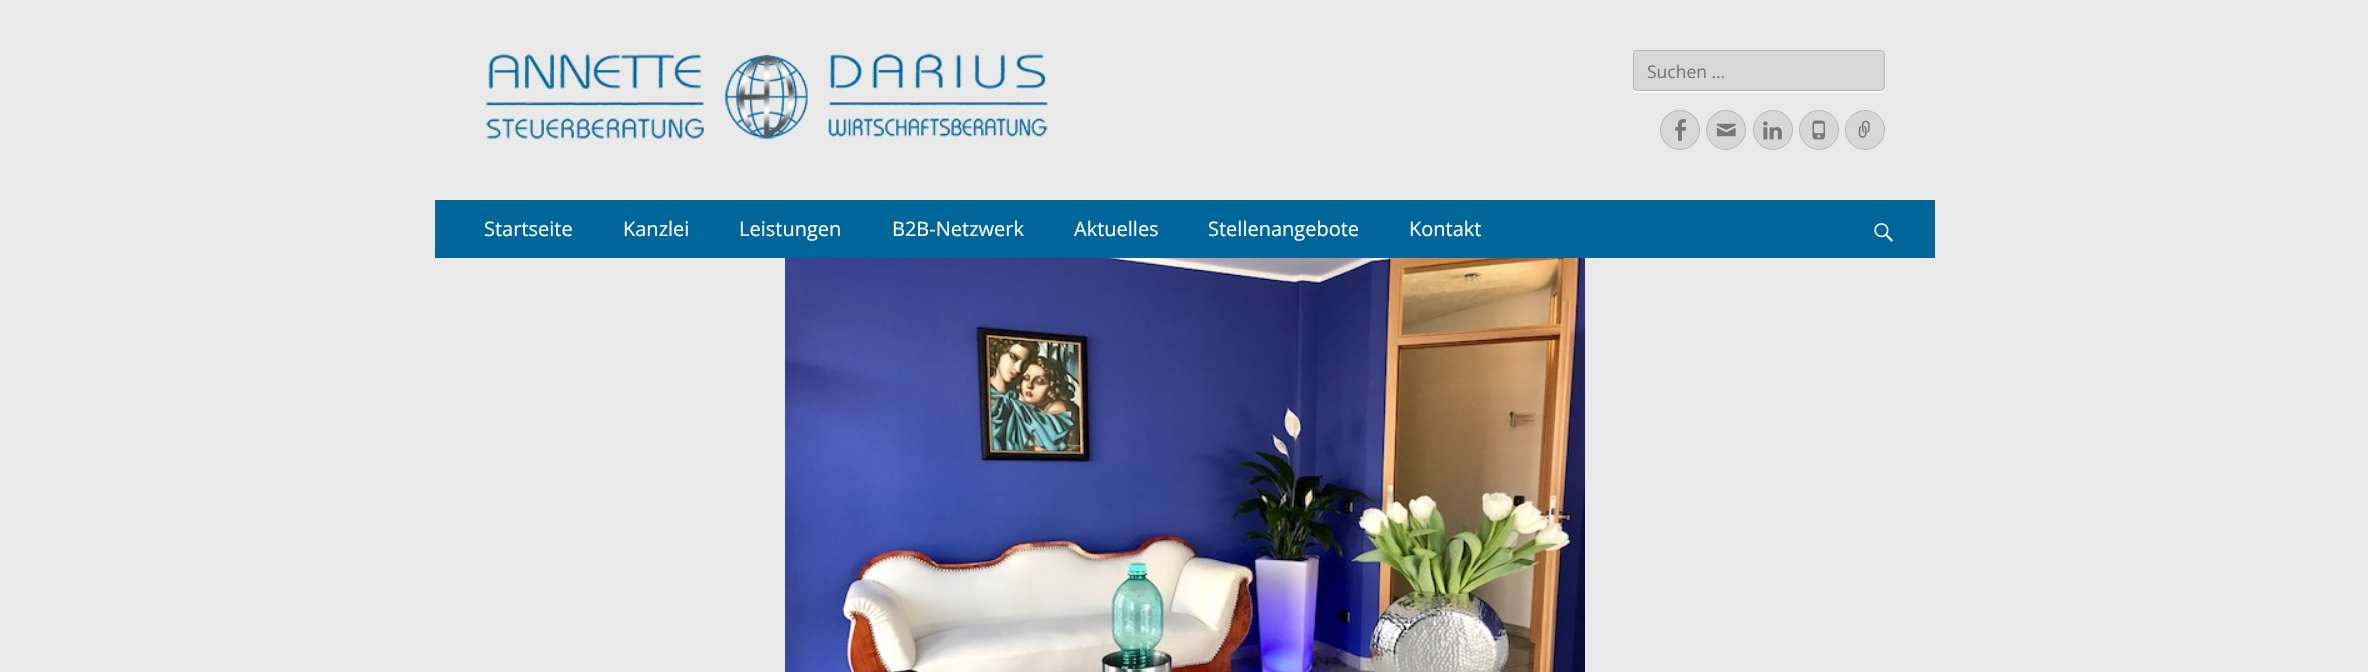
void draw(SkCanvas* canvas) {
  SkPaint paint;
  paint.setAntiAlias(true);
  auto face = [&](const char* family, int weight, float size, bool italic = false) {
    SkFontStyle style(weight, SkFontStyle::kNormal_Width,
      italic ? SkFontStyle::kItalic_Slant : SkFontStyle::kUpright_Slant);
    SkFont result(fontMgr->matchFamilyStyle(family, style), size);
    result.setSubpixel(true);
    return result;
  };
  auto paste = [&](const char* path, float x, float y, float w, float h) {
    auto image = SkImages::DeferredFromEncodedData(SkData::MakeFromFileName(path));
    canvas->drawImageRect(image, SkRect::MakeXYWH(x, y, w, h), SkSamplingOptions());
  };
  auto shape = [&](const char* data, bool evenOdd = false) {
    SkPath result = *SkParsePath::FromSVGString(data);
    if (evenOdd) result.setFillType(SkPathFillType::kEvenOdd);
    return result;
  };
  canvas->clear(0xffe9e9e9);
  paste("img/1.png", 486, 53, 562, 86);
  paint.setColor(0xffffffff);
  canvas->drawPath(shape("M1633 89C1633 91 1635 93 1637 93H1881C1883 93 1885 91 1885 89V88C1885 90 1883 91 1881 91H1636C1635 91 1634 91 1633 89Z"), paint);
  paint.setColor(0xffd7d7d7);
  canvas->drawRoundRect(SkRect::MakeXYWH(1633.5f, 50.5f, 251, 40), 3.5f, 3.5f, paint);
  paint.setStroke(true);
  paint.setStrokeWidth(1);
  paint.setColor(0xffb6b6b6);
  canvas->drawRoundRect(SkRect::MakeXYWH(1633.5f, 50.5f, 251, 40), 3.5f, 3.5f, paint);
  paint.setStroke(false);
  paint.setColor(0xffd7d7d7);
  canvas->drawCircle(1680, 130, 19.5f, paint);
  paint.setStroke(true);
  paint.setColor(0xffb6b6b6);
  canvas->drawCircle(1680, 130, 19.5f, paint);
  paste("img/2.png", 1675, 119, 11, 22);
  paint.setStroke(false);
  paint.setColor(0xffd7d7d7);
  canvas->drawCircle(1726, 130, 19.5f, paint);
  paint.setStroke(true);
  paint.setColor(0xffb6b6b6);
  canvas->drawCircle(1726, 130, 19.5f, paint);
  paste("img/3.png", 1716, 123, 20, 14);
  paint.setStroke(false);
  paint.setColor(0xffd7d7d7);
  canvas->drawCircle(1773, 130, 19.5f, paint);
  paint.setStroke(true);
  paint.setColor(0xffb6b6b6);
  canvas->drawCircle(1773, 130, 19.5f, paint);
  paste("img/4.png", 1763, 121, 19, 19);
  paint.setStroke(false);
  paint.setColor(0xffd7d7d7);
  canvas->drawCircle(1819, 130, 19.5f, paint);
  paint.setStroke(true);
  paint.setColor(0xffb6b6b6);
  canvas->drawCircle(1819, 130, 19.5f, paint);
  paste("img/5.png", 1812, 120, 13, 20);
  paint.setStroke(false);
  paint.setColor(0xffd7d7d7);
  canvas->drawCircle(1865, 130, 19.5f, paint);
  paint.setStroke(true);
  paint.setColor(0xffb6b6b6);
  canvas->drawCircle(1865, 130, 19.5f, paint);
  paste("img/6.png", 1858, 120, 12, 18);
  paint.setStroke(false);
  paint.setColor(0xff006699);
  canvas->drawRect(SkRect::MakeXYWH(435, 200, 1500, 58), paint);
  paste("img/7.png", 1874, 223, 19, 19);
  paste("img/8.png", 785, 258, 800, 414);
  auto f0 = face("Open Sans", 400, 17.5f);
  paint.setColor(0xff757575);
  canvas->drawString("Suchen …", 1647, 78, f0, paint);
  auto f1 = face("Open Sans", 400, 20);
  paint.setColor(0xffffffff);
  {
    const struct { const char* s; float x, y; } items[] = {
      {"Startseite", 484, 236},
      {"Kanzlei", 623, 236},
      {"Leistungen", 739, 236},
      {"B2B-Netzwerk", 892, 236},
      {"Aktuelles", 1074, 236},
      {"Stellenangebote", 1208, 236},
      {"Kontakt", 1409, 236},
    };
    for (auto [s, x, y] : items) {
      canvas->drawString(s, x, y, f1, paint);
    }
  }
}
